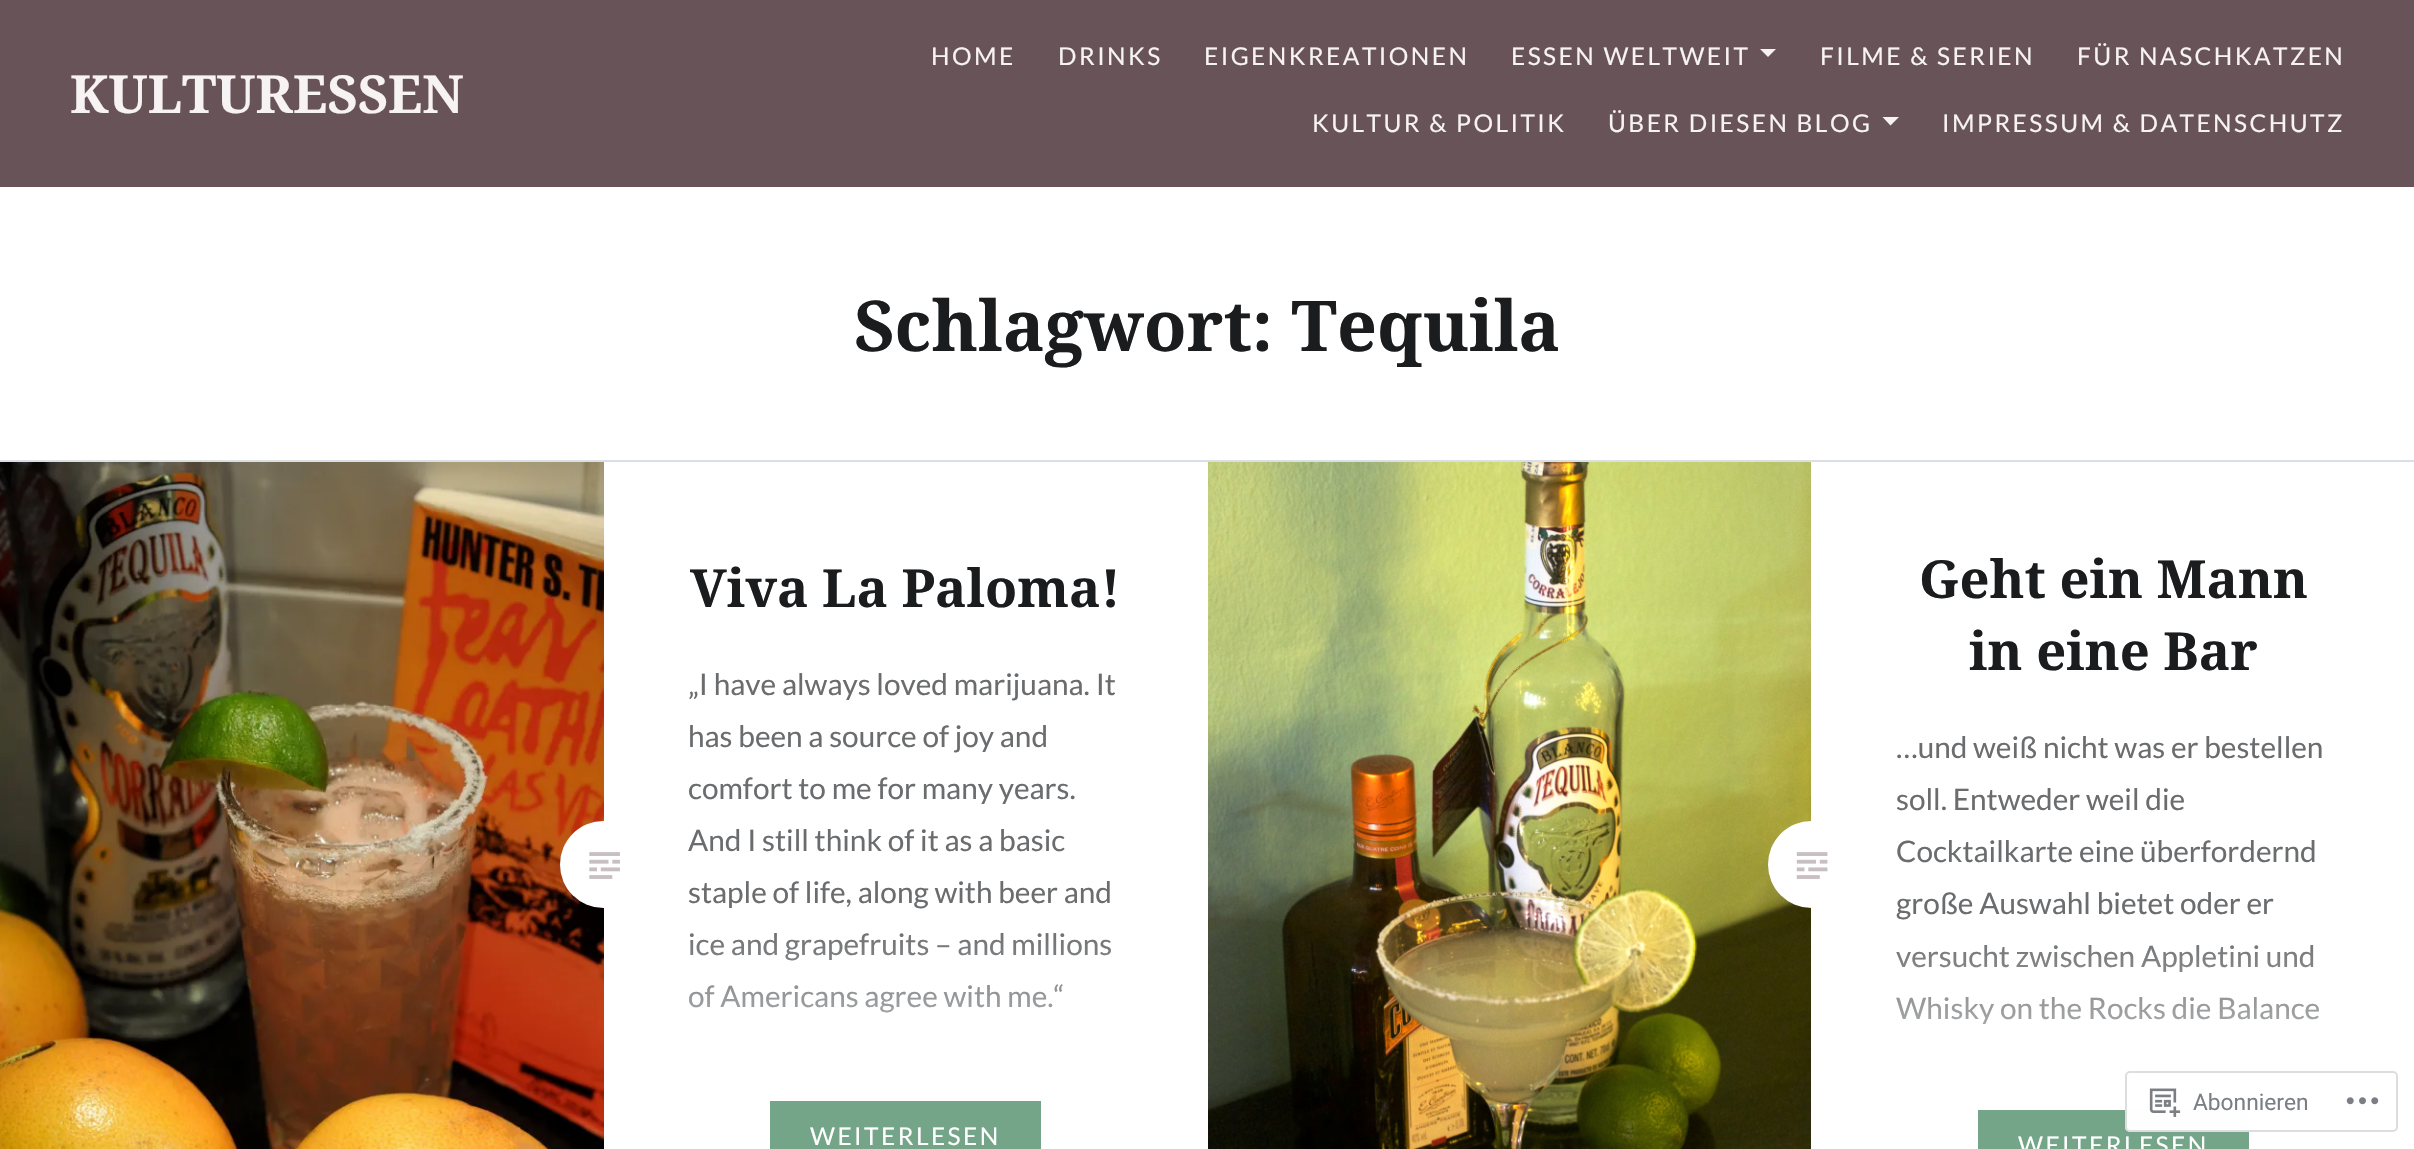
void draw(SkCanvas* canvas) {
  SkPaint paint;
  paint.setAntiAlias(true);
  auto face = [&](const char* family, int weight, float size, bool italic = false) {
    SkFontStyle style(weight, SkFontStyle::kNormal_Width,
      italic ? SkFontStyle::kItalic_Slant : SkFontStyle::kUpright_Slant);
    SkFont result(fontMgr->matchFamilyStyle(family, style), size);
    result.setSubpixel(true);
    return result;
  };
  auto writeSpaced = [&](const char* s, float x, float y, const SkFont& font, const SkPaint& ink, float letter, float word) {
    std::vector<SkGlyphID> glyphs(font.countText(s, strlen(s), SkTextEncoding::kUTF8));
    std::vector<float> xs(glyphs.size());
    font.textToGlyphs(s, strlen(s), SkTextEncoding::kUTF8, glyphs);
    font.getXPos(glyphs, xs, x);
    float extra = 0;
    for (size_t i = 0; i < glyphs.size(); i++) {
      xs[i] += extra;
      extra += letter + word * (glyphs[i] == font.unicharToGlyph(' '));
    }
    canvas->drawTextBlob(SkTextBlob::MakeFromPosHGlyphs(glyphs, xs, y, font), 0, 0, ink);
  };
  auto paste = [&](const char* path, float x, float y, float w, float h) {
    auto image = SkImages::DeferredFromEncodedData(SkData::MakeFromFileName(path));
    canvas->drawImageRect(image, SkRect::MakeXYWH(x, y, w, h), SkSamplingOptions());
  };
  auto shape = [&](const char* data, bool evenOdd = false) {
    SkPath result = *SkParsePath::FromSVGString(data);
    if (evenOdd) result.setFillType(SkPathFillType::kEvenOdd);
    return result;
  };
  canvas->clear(0xffffffff);
  paint.setColor(0xff685359);
  canvas->drawRect(SkRect::MakeXYWH(0, 0, 2414, 187), paint);
  paint.setColor(0xfff7f2f4);
  canvas->drawPath(shape("M1760 49H1776L1768 57Z"), paint);
  canvas->drawPath(shape("M1882.5 117H1899L1890.5 125.5Z"), paint);
  paint.setColor(0xffd9dfe5);
  canvas->drawRect(SkRect::MakeXYWH(0, 460, 2414, 2), paint);
  paste("img/1.png", 0, 462, 604, 687);
  paint.setColor(0xffffffff);
  canvas->drawRoundRect(SkRect::MakeXYWH(560, 821, 88, 87), 43.5f, 43.5f, paint);
  paint.setColor(0xff74a588);
  canvas->drawRect(SkRect::MakeXYWH(770, 1101, 271, 48), paint);
  paste("img/2.png", 589, 852, 31, 27);
  paste("img/3.png", 1208, 462, 603, 687);
  paint.setColor(0xffffffff);
  canvas->drawCircle(1811.5f, 864.5f, 43.5f, paint);
  paint.setColor(0xff74a588);
  canvas->drawRect(SkRect::MakeXYWH(1978, 1110, 271, 39), paint);
  paste("img/4.png", 1796, 852, 32, 27);
  paint.setColor(0xfaffffff);
  canvas->drawRoundRect(SkRect::MakeXYWH(2125, 1071, 273, 61), 5, 5, paint);
  paint.setStroke(true);
  paint.setStrokeWidth(2);
  paint.setColor(0xfadcdcde);
  canvas->drawRoundRect(SkRect::MakeXYWH(2126, 1072, 271, 59), 4, 4, paint);
  paste("img/5.png", 2149, 1088, 32, 29);
  paste("img/6.png", 2346, 1097, 33, 8);
  auto f0 = face("Noto Serif", 700, 52.5f);
  paint.setStroke(false);
  paint.setColor(0xfff7f2f4);
  canvas->drawString("KULTURESSEN", 70, 113, f0, paint);
  auto f1 = face("Lato", 400, 24.5f);
  {
    const struct { const char* s; float x, y; } items[] = {
      {"HOME", 931, 65},
      {"DRINKS", 1058, 65},
      {"EIGENKREATIONEN", 1204, 65},
      {"ESSEN WELTWEIT", 1511, 65},
      {"FILME & SERIEN", 1820, 65},
      {"FÜR NASCHKATZEN", 2077, 65},
      {"KULTUR & POLITIK", 1312, 132},
      {"ÜBER DIESEN BLOG", 1608, 132},
      {"IMPRESSUM & DATENSCHUTZ", 1942, 132},
    };
    for (auto [s, x, y] : items) {
      writeSpaced(s, x, y, f1, paint, 2.45f, 0);
    }
  }
  auto f2 = face("Noto Serif", 700, 70);
  paint.setColor(0xff1a1c1e);
  canvas->drawString("Schlagwort: Tequila", 854, 351, f2, paint);
  canvas->drawString("Viva La Paloma!", 690, 607, f0, paint);
  auto f3 = face("Lato", 400, 29.75f);
  paint.setColor(0xff6a6c6e);
  {
    const struct { const char* s; float x, y; } items[] = {
      {"„I have always loved marijuana. It", 688, 695},
      {"has been a source of joy and", 688, 747},
      {"comfort to me for many years.", 688, 799},
      {"And I still think of it as a basic", 688, 851},
      {"staple of life, along with beer and", 688, 903},
      {"ice and grapefruits – and millions", 688, 955},
      {"of Americans agree with me.“", 688, 1007},
    };
    for (auto [s, x, y] : items) {
      canvas->drawString(s, x, y, f3, paint);
    }
  }
  paint.setColor(0xffffffff);
  writeSpaced("WEITERLESEN", 810, 1145, f1, paint, 2.45f, 0);
  {
    const SkColor colors[] = {0x00ffffff, 0xffffffff};
    const float stops[] = {0, 1};
    const SkPoint ends[] = {{906, 924}, {906, 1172}};
    paint.setShader(SkGradientShader::MakeLinear(ends, colors, stops, 2, SkTileMode::kClamp));
    paint.setAlpha(255);
  }
  canvas->drawRect(SkRect::MakeXYWH(689, 933, 423, 80), paint);
  paint.setShader(nullptr);
  paint.setColor(0xff1a1c1e);
  canvas->drawString("Geht ein Mann", 1919, 598, f0, paint);
  canvas->drawString("in eine Bar", 1969, 670, f0, paint);
  paint.setColor(0xff6a6c6e);
  {
    const struct { const char* s; float x, y; } items[] = {
      {"…und weiß nicht was er bestellen", 1896, 758},
      {"soll. Entweder weil die", 1896, 810},
      {"Cocktailkarte eine überfordernd", 1896, 862},
      {"große Auswahl bietet oder er", 1896, 914},
      {"versucht zwischen Appletini und", 1896, 967},
      {"Whisky on the Rocks die Balance", 1896, 1019},
    };
    for (auto [s, x, y] : items) {
      canvas->drawString(s, x, y, f3, paint);
    }
  }
  paint.setColor(0xffffffff);
  writeSpaced("WEITERLESEN", 2018, 1154, f1, paint, 2.45f, 0);
  {
    const SkColor colors[] = {0x00ffffff, 0xffffffff};
    const float stops[] = {0, 1};
    const SkPoint ends[] = {{2113, 926}, {2113, 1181}};
    paint.setShader(SkGradientShader::MakeLinear(ends, colors, stops, 2, SkTileMode::kClamp));
    paint.setAlpha(255);
  }
  canvas->drawRect(SkRect::MakeXYWH(1896, 945, 423, 80), paint);
  auto f4 = face("Roboto", 400, 22.75f);
  paint.setShader(nullptr);
  paint.setColor(0xff7b7f84);
  canvas->drawString("Abonnieren", 2193, 1110, f4, paint);
}
